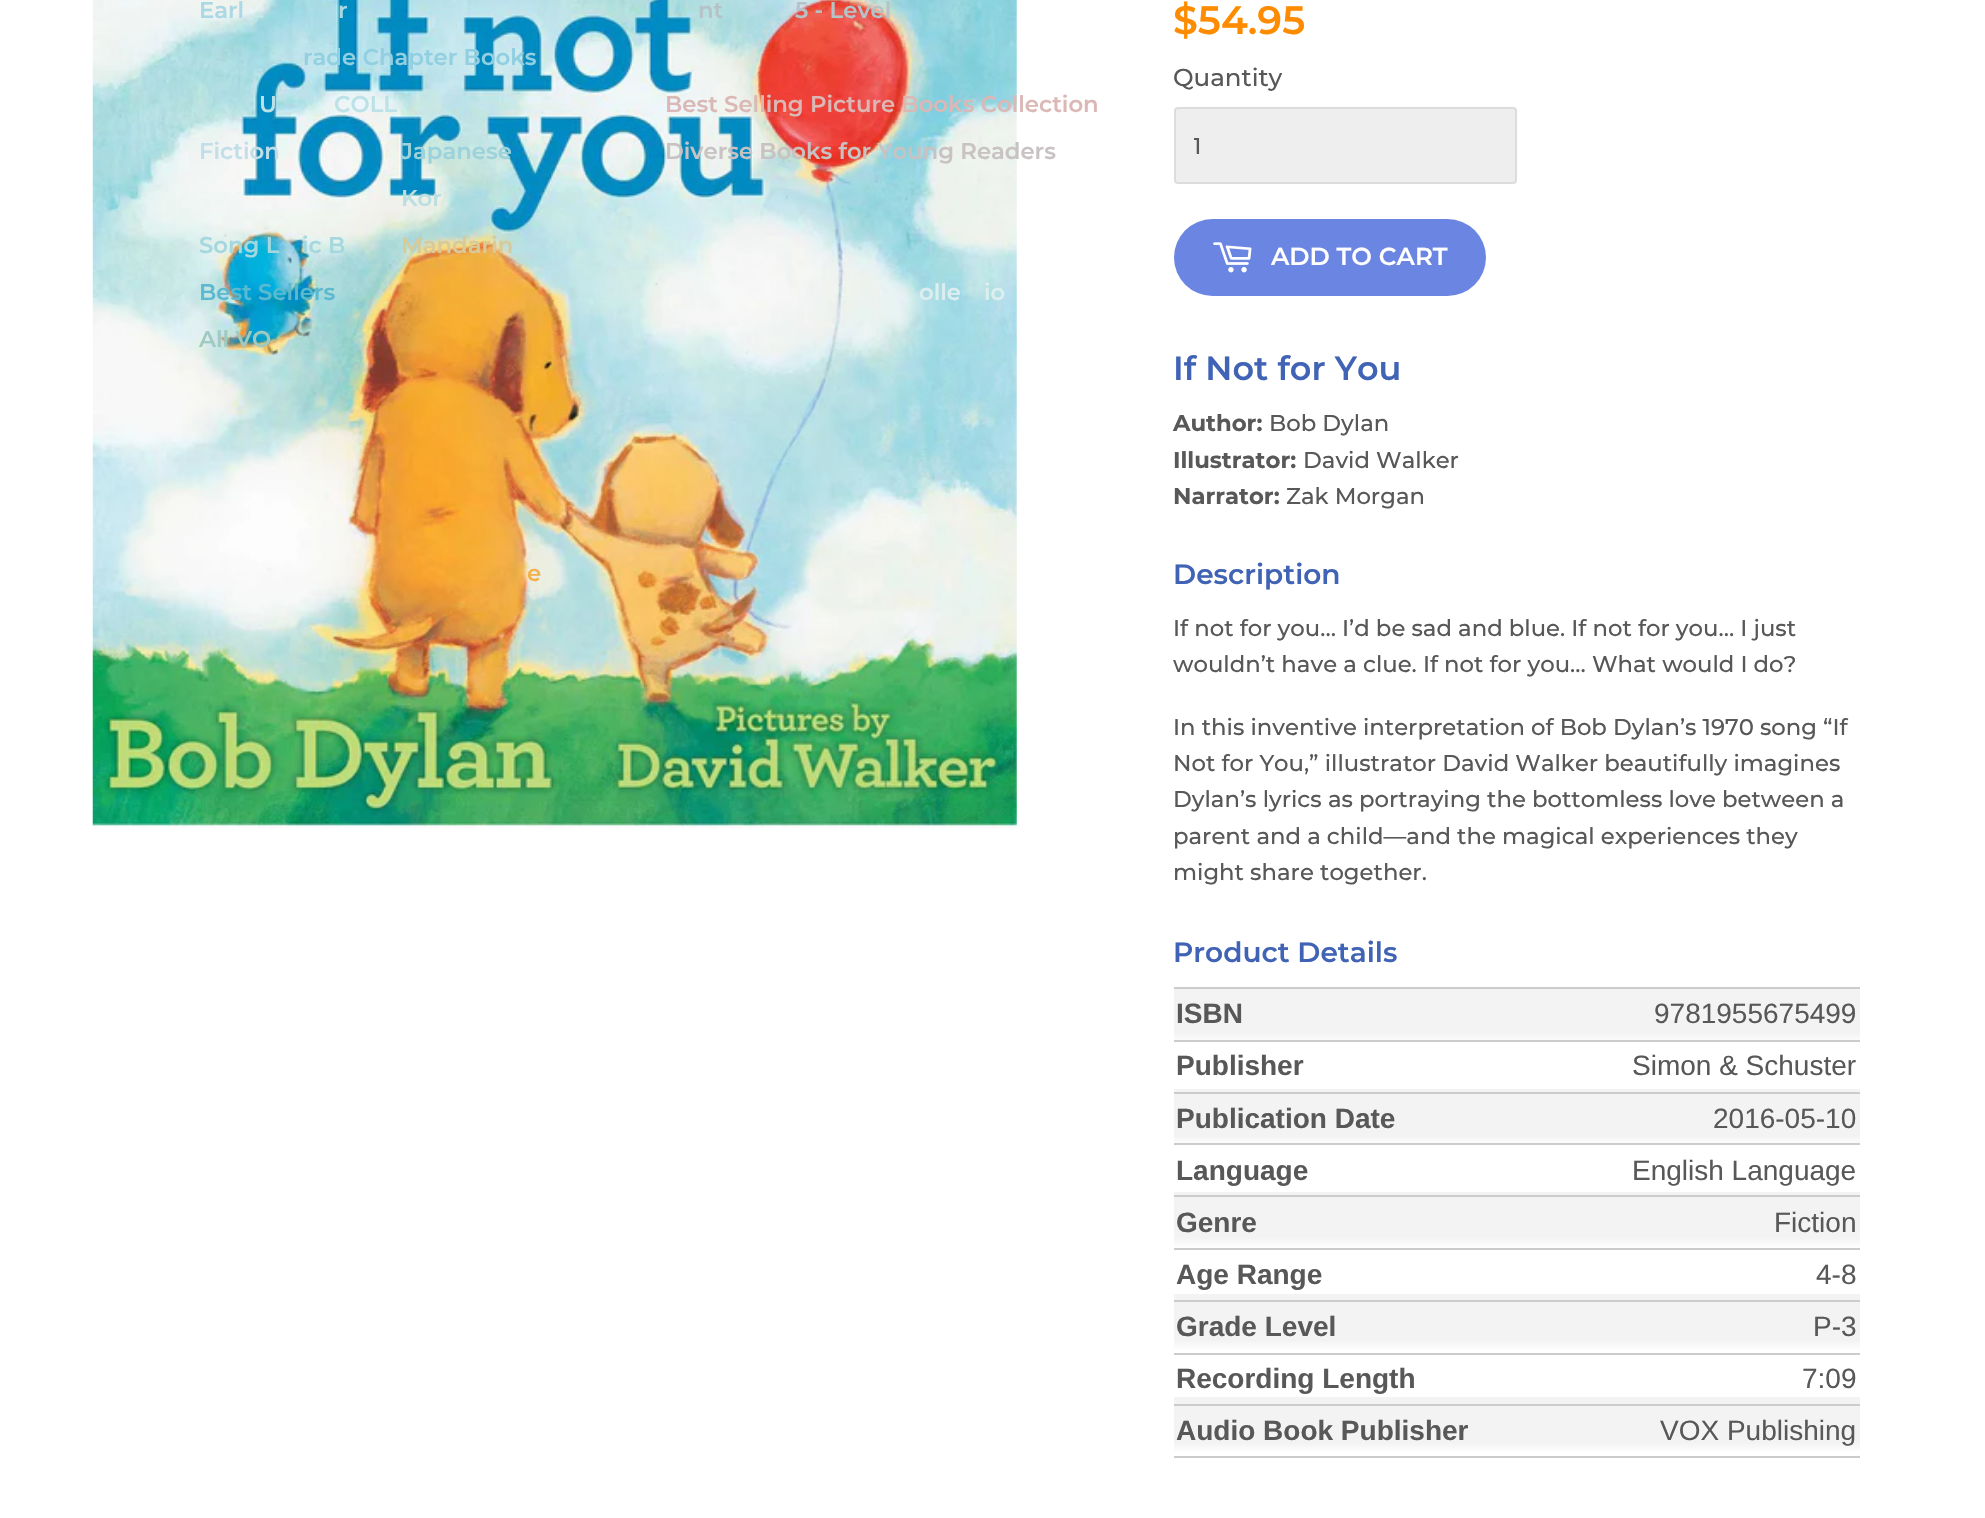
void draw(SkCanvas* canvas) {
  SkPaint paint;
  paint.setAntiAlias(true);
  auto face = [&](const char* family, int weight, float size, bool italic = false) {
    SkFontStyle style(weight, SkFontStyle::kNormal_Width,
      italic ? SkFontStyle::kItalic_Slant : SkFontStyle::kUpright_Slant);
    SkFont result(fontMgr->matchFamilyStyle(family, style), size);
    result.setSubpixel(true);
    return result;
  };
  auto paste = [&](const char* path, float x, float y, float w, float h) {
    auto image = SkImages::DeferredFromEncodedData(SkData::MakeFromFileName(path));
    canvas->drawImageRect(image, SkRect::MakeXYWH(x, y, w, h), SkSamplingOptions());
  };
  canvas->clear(0xffffffff);
  paste("img/1.png", 92, 0, 925, 829);
  paint.setColor(0xffeeeeee);
  canvas->drawRoundRect(SkRect::MakeXYWH(1175, 108, 341, 75), 3, 3, paint);
  paint.setStroke(true);
  paint.setStrokeWidth(2);
  paint.setColor(0xffdcdcdc);
  canvas->drawRoundRect(SkRect::MakeXYWH(1175, 108, 341, 75), 3, 3, paint);
  paint.setStroke(false);
  paint.setColor(0xff6a86e2);
  canvas->drawRoundRect(SkRect::MakeXYWH(1174, 219, 312, 77), 38.5f, 38.5f, paint);
  paste("img/2.png", 1213, 242, 39, 31);
  {
    const SkColor colors[] = {0xfff3f3f3, 0xfff3f3f3, 0xffffffff, 0xffffffff, 0xfff3f3f3, 0xfff3f3f3, 0xffffffff, 0xffffffff, 0xfff3f3f3, 0xfff3f3f3, 0xffffffff, 0xffffffff, 0xfff3f3f3, 0xfff3f3f3, 0xffffffff, 0xffffffff, 0xfff3f3f3, 0xfff3f3f3, 0xffffffff, 0xffffffff};
    const float stops[] = {0, 0.09f, 0.11f, 0.2f, 0.2f, 0.29f, 0.31f, 0.4f, 0.4f, 0.49f, 0.51f, 0.6f, 0.6f, 0.69f, 0.71f, 0.8f, 0.8f, 0.89f, 0.91f, 1};
    const SkPoint ends[] = {{1517, 987}, {1517, 1499}};
    paint.setShader(SkGradientShader::MakeLinear(ends, colors, stops, 20, SkTileMode::kClamp));
    paint.setAlpha(255);
  }
  canvas->drawRect(SkRect::MakeXYWH(1174, 989, 686, 462), paint);
  paint.setShader(nullptr);
  {
    const struct { float x, y, w, h; SkColor color; } items[] = {
      {1174, 987, 686, 2, 0xffcccccc},
      {1174, 1040, 686, 2, 0xffcccccc},
      {1174, 1092, 686, 2, 0xffcccccc},
      {1174, 1143, 686, 2, 0xffcccccc},
      {1174, 1195, 686, 2, 0xffcccccc},
      {1174, 1248, 686, 2, 0xffcccccc},
      {1174, 1300, 686, 2, 0xffcccccc},
      {1174, 1353, 686, 2, 0xffcccccc},
      {1174, 1404, 686, 2, 0xffcccccc},
      {1174, 1456, 686, 2, 0xffcccccc},
    };
    for (auto [x, y, w, h, color] : items) {
      paint.setColor(color);
      canvas->drawRect(SkRect::MakeXYWH(x, y, w, h), paint);
    }
  }
  auto f0 = face("Montserrat", 600, 22.75f);
  paint.setColor(0xffaad9e5);
  canvas->drawString("Earl", 199, 18, f0, paint);
  canvas->drawString("r", 338, 18, f0, paint);
  paint.setColor(0xffb4c3c7);
  canvas->drawString("nt", 698, 18, f0, paint);
  canvas->drawString("5 - Level", 795, 18, f0, paint);
  paint.setColor(0xff92cfe0);
  canvas->drawString("rade Chapter Books", 303, 65, f0, paint);
  paint.setColor(0xffc2dfe9);
  canvas->drawString("Fiction", 199, 159, f0, paint);
  paint.setColor(0xffbce2e7);
  canvas->drawString("U", 259, 112, f0, paint);
  canvas->drawString("COLL", 334, 112, f0, paint);
  paint.setColor(0xffdbb8b6);
  canvas->drawString("Best Selling Picture Books Collection", 665, 112, f0, paint);
  paint.setColor(0xffc8c2c3);
  canvas->drawString("Diverse Books for Young Readers", 665, 159, f0, paint);
  paint.setColor(0xffddeeef);
  canvas->drawString("olle", 919, 300, f0, paint);
  canvas->drawString("io", 984, 300, f0, paint);
  paint.setColor(0xffa5d8de);
  canvas->drawString("Song L", 199, 253, f0, paint);
  canvas->drawString("ic B", 302, 253, f0, paint);
  paint.setColor(0xff5bb9d0);
  canvas->drawString("Best Sellers", 199, 300, f0, paint);
  paint.setColor(0xff9fcac1);
  canvas->drawString("All VO", 199, 347, f0, paint);
  paint.setColor(0xff9dd2da);
  canvas->drawString("Japanese", 401, 159, f0, paint);
  paint.setColor(0xffbbdfe1);
  canvas->drawString("Kor", 401, 206, f0, paint);
  paint.setColor(0xffd8ca99);
  canvas->drawString("Mandarin", 401, 253, f0, paint);
  paint.setColor(0xfff3b14d);
  canvas->drawString("e", 527, 581, f0, paint);
  auto f1 = face("Montserrat", 600, 39.5f);
  paint.setColor(0xffff8c00);
  canvas->drawString("$54.95", 1173, 34, f1, paint);
  auto f2 = face("Montserrat", 500, 24.5f);
  paint.setColor(0xff585858);
  canvas->drawString("Quantity", 1173, 86, f2, paint);
  canvas->save();
  canvas->clipRect(SkRect::MakeXYWH(1194, 130, 278, 33));
  auto f3 = face("Montserrat", 500, 22.75f);
  canvas->drawString("1", 1193, 154, f3, paint);
  canvas->restore();
  auto f4 = face("Montserrat", 600, 24.5f);
  paint.setColor(0xffffffff);
  canvas->drawString("ADD TO CART", 1271, 265, f4, paint);
  auto f5 = face("Montserrat", 600, 33.5f);
  paint.setColor(0xff4063b5);
  canvas->drawString("If Not for You", 1173, 380, f5, paint);
  auto f6 = face("Montserrat", 700, 22.75f);
  paint.setColor(0xff585858);
  canvas->drawString("Author:", 1173, 431, f6, paint);
  canvas->drawString("Bob Dylan", 1269, 431, f3, paint);
  canvas->drawString("Illustrator:", 1173, 468, f6, paint);
  canvas->drawString("David Walker", 1303, 468, f3, paint);
  canvas->drawString("Narrator:", 1173, 504, f6, paint);
  canvas->drawString("Zak Morgan", 1286, 504, f3, paint);
  auto f7 = face("Montserrat", 600, 28);
  paint.setColor(0xff4063b5);
  canvas->drawString("Description", 1173, 584, f7, paint);
  paint.setColor(0xff585858);
  {
    const struct { const char* s; float x, y; } items[] = {
      {"If not for you… I’d be sad and blue. If not for you… I just", 1173, 636},
      {"wouldn’t have a clue. If not for you… What would I do?", 1173, 672},
      {"In this inventive interpretation of Bob Dylan’s 1970 song “If", 1173, 735},
      {"Not for You,” illustrator David Walker beautifully imagines", 1173, 771},
      {"Dylan’s lyrics as portraying the bottomless love between a", 1173, 807},
      {"parent and a child—and the magical experiences they", 1173, 844},
      {"might share together.", 1173, 880},
    };
    for (auto [s, x, y] : items) {
      canvas->drawString(s, x, y, f3, paint);
    }
  }
  paint.setColor(0xff4063b5);
  canvas->drawString("Product Details", 1173, 962, f7, paint);
  auto f8 = face("Liberation Sans", 700, 28);
  paint.setColor(0xff585858);
  canvas->drawString("ISBN", 1176, 1023, f8, paint);
  auto f9 = face("Liberation Sans", 400, 28);
  canvas->drawString("9781955675499", 1654, 1023, f9, paint);
  canvas->drawString("Publisher", 1176, 1075, f8, paint);
  canvas->drawString("Simon & Schuster", 1632, 1075, f9, paint);
  canvas->drawString("Publication Date", 1176, 1128, f8, paint);
  canvas->drawString("2016-05-10", 1713, 1128, f9, paint);
  canvas->drawString("Language", 1176, 1180, f8, paint);
  canvas->drawString("English Language", 1632, 1180, f9, paint);
  canvas->drawString("Genre", 1176, 1232, f8, paint);
  canvas->drawString("Fiction", 1774, 1232, f9, paint);
  canvas->drawString("Age Range", 1176, 1284, f8, paint);
  canvas->drawString("4-8", 1816, 1284, f9, paint);
  canvas->drawString("Grade Level", 1176, 1336, f8, paint);
  canvas->drawString("P-3", 1813, 1336, f9, paint);
  canvas->drawString("Recording Length", 1176, 1388, f8, paint);
  canvas->drawString("7:09", 1802, 1388, f9, paint);
  canvas->drawString("Audio Book Publisher", 1176, 1440, f8, paint);
  canvas->drawString("VOX Publishing", 1660, 1440, f9, paint);
}
